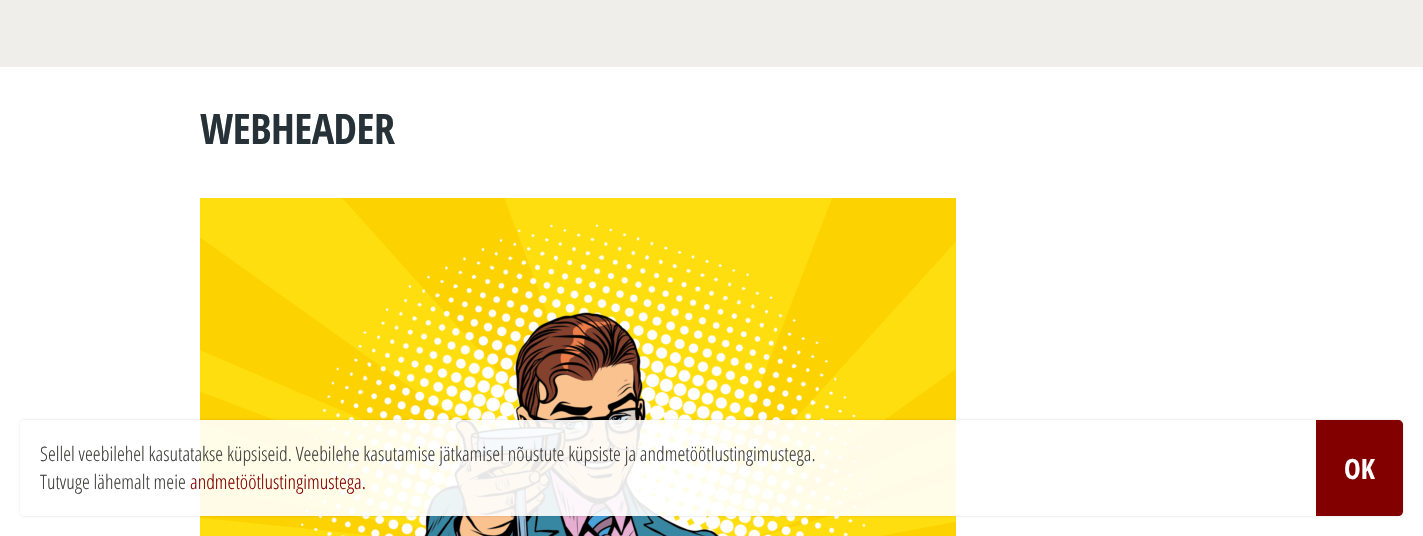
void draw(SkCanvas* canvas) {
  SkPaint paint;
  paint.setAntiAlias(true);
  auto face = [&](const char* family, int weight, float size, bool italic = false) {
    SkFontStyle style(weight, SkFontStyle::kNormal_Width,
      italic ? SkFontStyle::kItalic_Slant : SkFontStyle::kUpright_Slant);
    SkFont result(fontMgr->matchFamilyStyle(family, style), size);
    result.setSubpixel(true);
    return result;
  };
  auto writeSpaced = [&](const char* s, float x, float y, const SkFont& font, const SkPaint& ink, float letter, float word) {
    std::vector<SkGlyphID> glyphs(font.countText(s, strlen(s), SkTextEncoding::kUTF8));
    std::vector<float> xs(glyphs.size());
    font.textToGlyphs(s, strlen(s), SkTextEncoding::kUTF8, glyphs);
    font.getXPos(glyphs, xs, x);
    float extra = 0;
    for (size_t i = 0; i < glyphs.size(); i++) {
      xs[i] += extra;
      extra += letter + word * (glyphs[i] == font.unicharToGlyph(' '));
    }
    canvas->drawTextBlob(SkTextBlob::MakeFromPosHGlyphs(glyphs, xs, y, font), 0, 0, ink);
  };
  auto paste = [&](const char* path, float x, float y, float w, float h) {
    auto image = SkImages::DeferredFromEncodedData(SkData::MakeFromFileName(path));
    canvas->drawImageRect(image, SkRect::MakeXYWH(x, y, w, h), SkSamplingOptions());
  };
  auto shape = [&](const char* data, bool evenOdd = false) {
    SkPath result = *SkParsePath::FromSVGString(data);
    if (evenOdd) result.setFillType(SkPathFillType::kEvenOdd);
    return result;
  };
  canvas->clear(0xffefeeeb);
  paint.setColor(0xffffffff);
  canvas->drawRect(SkRect::MakeXYWH(0, 67, 1423, 469), paint);
  paste("img/1.png", 200, 198, 756, 338);
  canvas->save();
  canvas->clipPath(shape("M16 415H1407V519H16ZM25 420H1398C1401 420 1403 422 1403 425V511C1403 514 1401 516 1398 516H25C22 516 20 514 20 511V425C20 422 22 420 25 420Z", true), true);
  paint.setColor(0x0f000000);
  paint.setMaskFilter(SkMaskFilter::MakeBlur(kNormal_SkBlurStyle, 1));
  canvas->drawRoundRect(SkRect::MakeXYWH(20, 419, 1383, 96), 5, 5, paint);
  paint.setMaskFilter(nullptr);
  canvas->restore();
  canvas->save();
  canvas->clipPath(shape("M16 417H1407V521H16ZM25 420H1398C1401 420 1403 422 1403 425V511C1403 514 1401 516 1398 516H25C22 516 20 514 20 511V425C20 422 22 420 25 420Z", true), true);
  paint.setMaskFilter(SkMaskFilter::MakeBlur(kNormal_SkBlurStyle, 1));
  canvas->drawRoundRect(SkRect::MakeXYWH(20, 421, 1383, 96), 5, 5, paint);
  paint.setMaskFilter(nullptr);
  canvas->restore();
  paint.setColor(0xe6ffffff);
  canvas->drawRoundRect(SkRect::MakeXYWH(20, 420, 1383, 96), 5, 5, paint);
  paint.setColor(0xff820000);
  canvas->drawPath(shape("M1316 420H1398C1401 420 1403 422 1403 425V511C1403 514 1401 516 1398 516H1316Z"), paint);
  auto f0 = face("Open Sans Condensed", 700, 42);
  paint.setColor(0xff263238);
  writeSpaced("WEBHEADER", 200, 144, f0, paint, -0.5f, 0);
  auto f1 = face("Open Sans Condensed", 300, 20);
  paint.setColor(0xff3f3f3d);
  canvas->drawString("Sellel veebilehel kasutatakse küpsiseid. Veebilehe kasutamise jätkamisel nõustute küpsiste ja andmetöötlustingimustega.", 40, 461, f1, paint);
  canvas->drawString("Tutvuge lähemalt meie", 40, 489, f1, paint);
  paint.setColor(0xff820000);
  canvas->drawString("andmetöötlustingimustega.", 190, 489, f1, paint);
  auto f2 = face("Open Sans Condensed", 700, 28);
  paint.setColor(0xffffffff);
  canvas->drawString("OK", 1344, 479, f2, paint);
}
